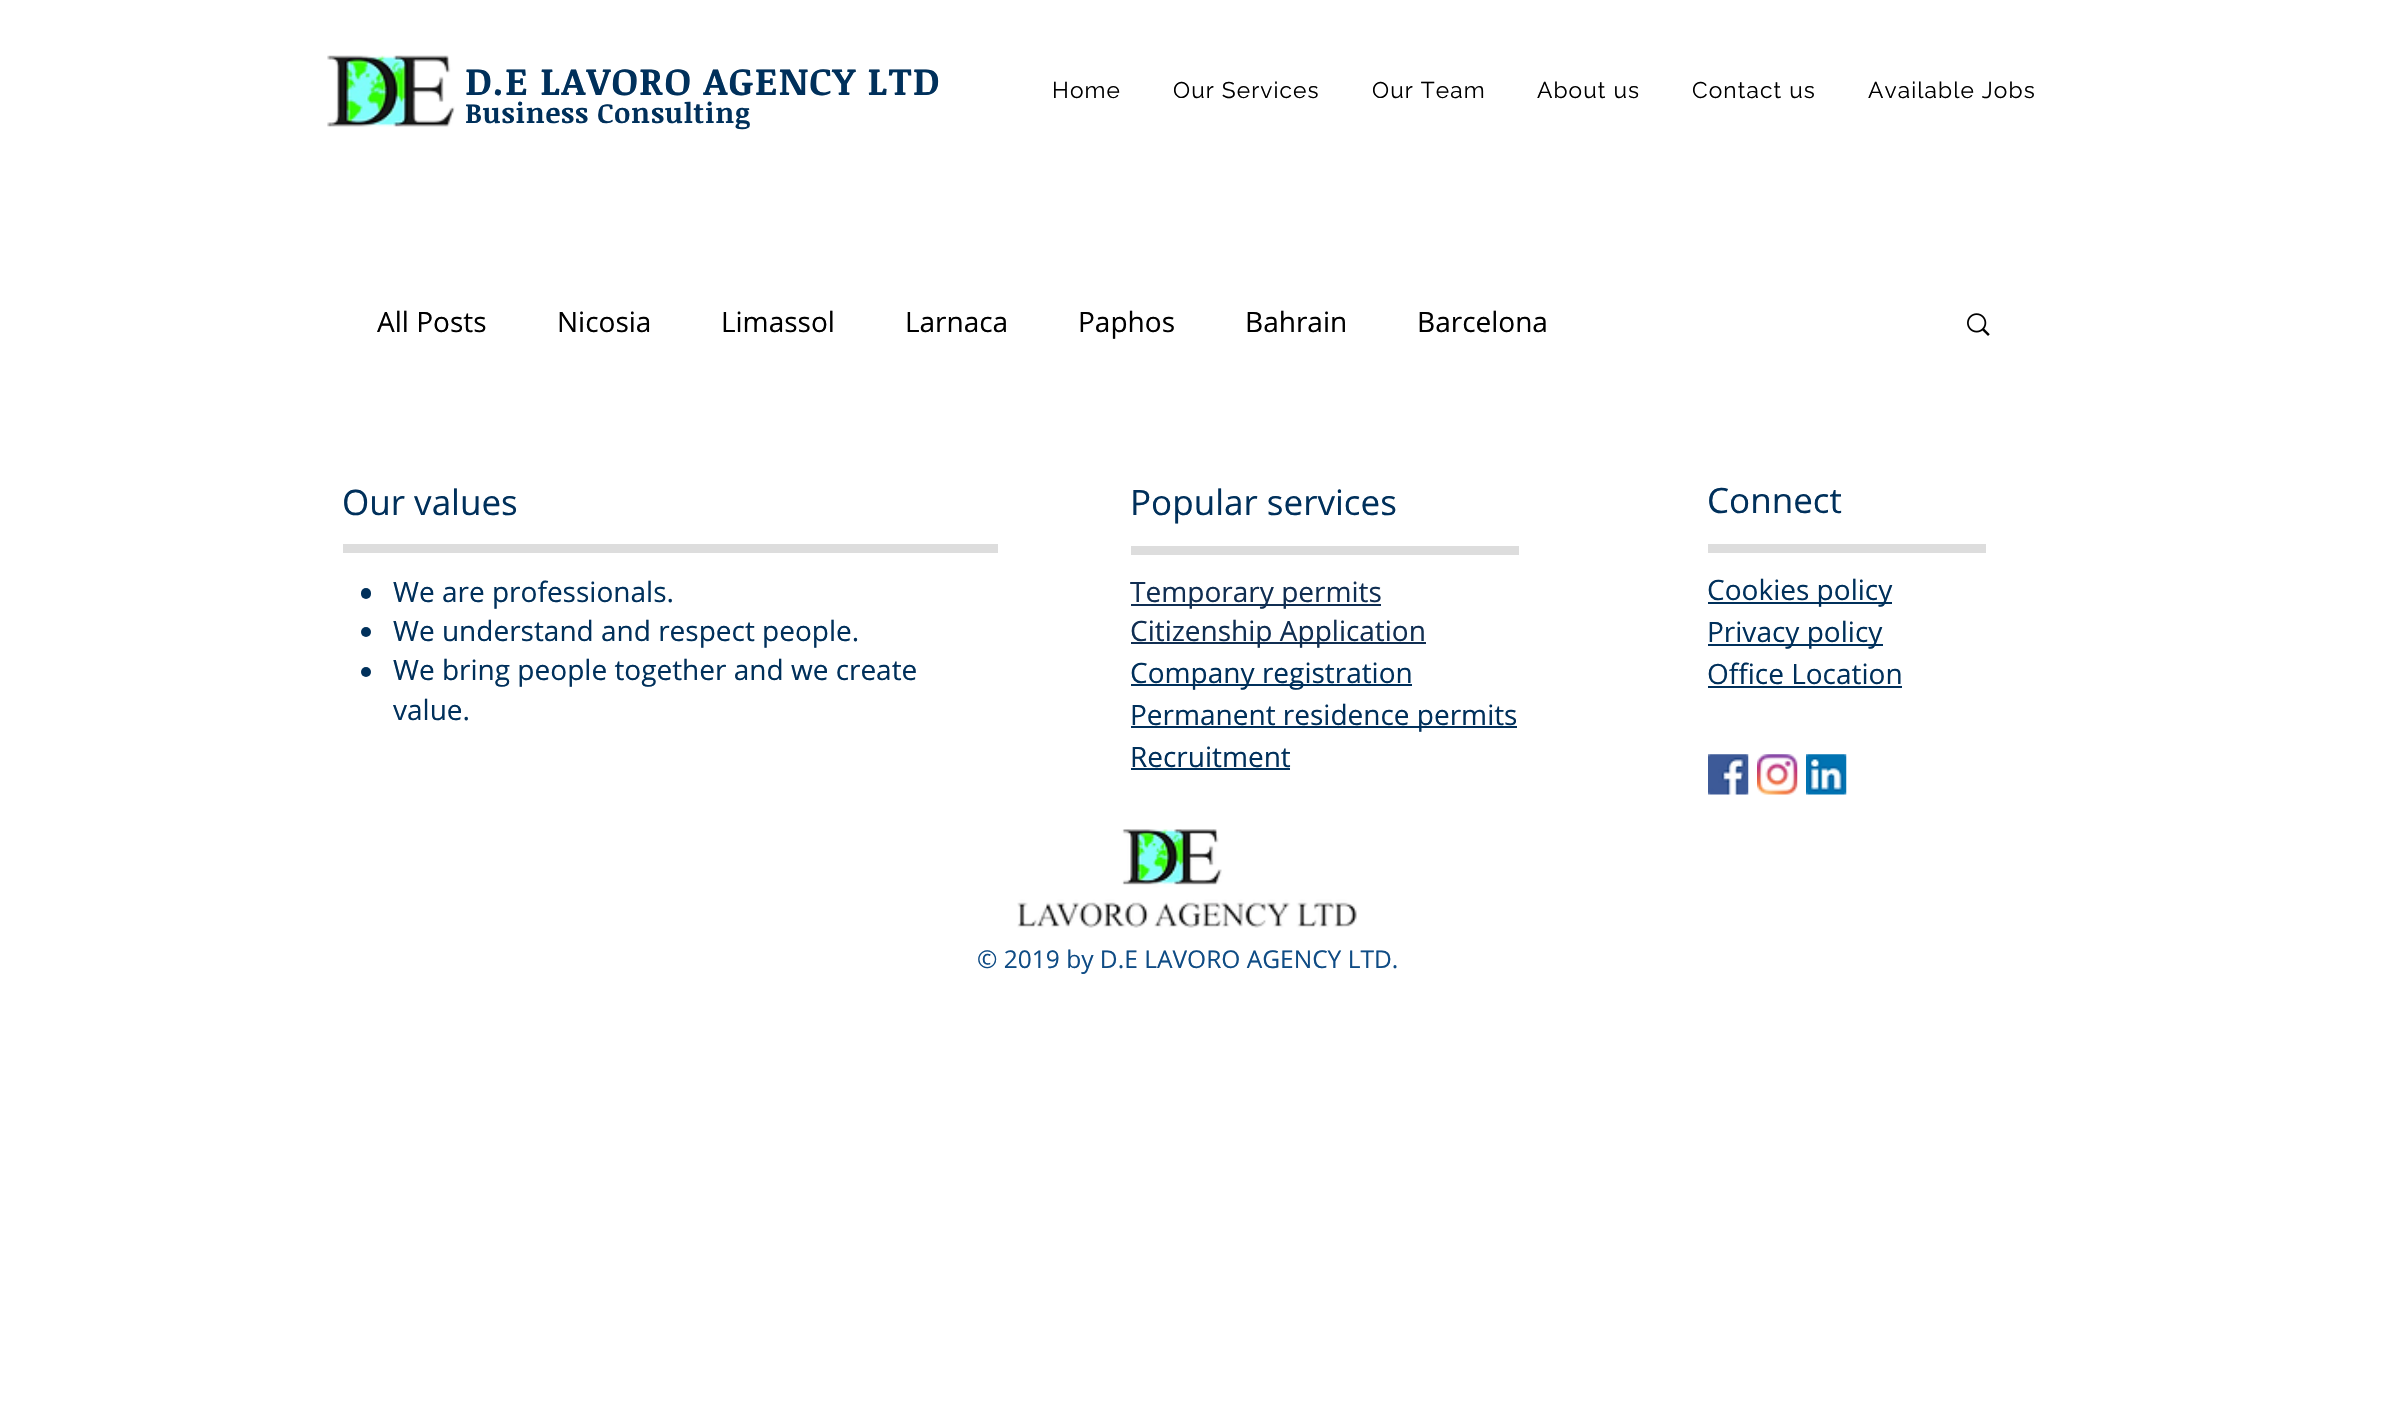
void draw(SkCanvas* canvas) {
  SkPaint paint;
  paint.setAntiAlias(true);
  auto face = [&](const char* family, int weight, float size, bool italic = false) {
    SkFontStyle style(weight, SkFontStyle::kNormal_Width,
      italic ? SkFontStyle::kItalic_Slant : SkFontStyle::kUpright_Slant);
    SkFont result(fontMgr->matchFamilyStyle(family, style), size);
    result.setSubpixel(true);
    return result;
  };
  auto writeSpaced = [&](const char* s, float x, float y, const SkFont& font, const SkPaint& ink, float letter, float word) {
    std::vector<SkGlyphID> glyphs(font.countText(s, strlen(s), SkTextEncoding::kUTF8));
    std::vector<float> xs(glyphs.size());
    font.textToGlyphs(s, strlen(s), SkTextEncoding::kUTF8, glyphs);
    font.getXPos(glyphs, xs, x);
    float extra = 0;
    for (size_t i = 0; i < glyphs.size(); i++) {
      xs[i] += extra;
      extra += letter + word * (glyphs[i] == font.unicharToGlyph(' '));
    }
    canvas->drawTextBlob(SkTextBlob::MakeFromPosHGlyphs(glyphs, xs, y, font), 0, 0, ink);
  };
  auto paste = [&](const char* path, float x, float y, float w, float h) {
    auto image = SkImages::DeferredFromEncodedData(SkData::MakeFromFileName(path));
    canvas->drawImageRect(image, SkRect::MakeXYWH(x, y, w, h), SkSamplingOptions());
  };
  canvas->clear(0xffffffff);
  paste("img/1.png", 327, 55, 128, 72);
  paste("img/2.png", 1967, 313, 23, 23);
  {
    const struct { float x, y, w, h; SkColor color; } items[] = {
      {343, 544, 655, 9, 0xffdddddd},
      {1131, 546, 388, 9, 0xffdddddd},
      {1708, 544, 278, 9, 0xffdddddd},
    };
    for (auto [x, y, w, h, color] : items) {
      paint.setColor(color);
      canvas->drawRect(SkRect::MakeXYWH(x, y, w, h), paint);
    }
  }
  paint.setColor(0xff00305b);
  canvas->drawRoundRect(SkRect::MakeXYWH(361, 588, 10, 11), 5, 5, paint);
  canvas->drawCircle(366, 632, 5, paint);
  canvas->drawCircle(366, 672, 5, paint);
  {
    const struct { float x, y, w, h; SkColor color; } items[] = {
      {1131, 604, 250, 2, 0xff102e52},
      {1131, 642, 295, 2, 0xff102e52},
      {1131, 684, 281, 2, 0xff00305b},
      {1131, 726, 386, 2, 0xff00305b},
      {1131, 768, 159, 2, 0xff00305b},
      {1708, 602, 184, 2, 0xff00305b},
      {1708, 644, 175, 2, 0xff00305b},
      {1708, 686, 194, 2, 0xff00305b},
    };
    for (auto [x, y, w, h, color] : items) {
      paint.setColor(color);
      canvas->drawRect(SkRect::MakeXYWH(x, y, w, h), paint);
    }
  }
  paste("img/3.png", 1708, 754, 41, 41);
  paste("img/4.png", 1757, 754, 41, 41);
  paste("img/5.png", 1806, 754, 41, 41);
  paste("img/6.png", 1017, 829, 340, 99);
  auto f0 = face("Noticia Text", 700, 38.5f);
  writeSpaced("D.E LAVORO AGENCY LTD", 465, 95, f0, paint, 1.2f, 0);
  auto f1 = face("Noticia Text", 700, 28);
  writeSpaced("Business Consulting", 465, 123, f1, paint, 0.8f, 0);
  auto f2 = face("Raleway", 400, 22.75f);
  paint.setColor(0xff000000);
  {
    const struct { const char* s; float x, y; } items[] = {
      {"Home", 1052, 98},
      {"Our Services", 1173, 98},
      {"Our Team", 1372, 98},
      {"About us", 1537, 98},
      {"Contact us", 1692, 98},
      {"Available Jobs", 1868, 98},
    };
    for (auto [s, x, y] : items) {
      writeSpaced(s, x, y, f2, paint, 1.1f, 0);
    }
  }
  auto f3 = face("Open Sans", 400, 28);
  {
    const struct { const char* s; float x, y; } items[] = {
      {"All Posts", 377, 332},
      {"Nicosia", 557, 332},
      {"Limassol", 721, 332},
      {"Larnaca", 905, 332},
      {"Paphos", 1078, 332},
      {"Bahrain", 1245, 332},
      {"Barcelona", 1417, 332},
    };
    for (auto [s, x, y] : items) {
      canvas->drawString(s, x, y, f3, paint);
    }
  }
  auto f4 = face("Open Sans", 400, 35);
  paint.setColor(0xff00305b);
  {
    const struct { const char* s; float x, y; } items[] = {
      {"Our values", 342, 515},
      {"Popular services", 1130, 515},
      {"Connect", 1707, 513},
    };
    for (auto [s, x, y] : items) {
      canvas->drawString(s, x, y, f4, paint);
    }
  }
  {
    const struct { const char* s; float x, y; } items[] = {
      {"We are professionals.", 393, 602},
      {"We understand and respect people.", 393, 641},
      {"We bring people together and we create", 393, 680},
      {"value.", 393, 720},
    };
    for (auto [s, x, y] : items) {
      canvas->drawString(s, x, y, f3, paint);
    }
  }
  paint.setColor(0xff102e52);
  canvas->drawString("Temporary permits", 1130, 602, f3, paint);
  canvas->drawString("Citizenship Application", 1130, 641, f3, paint);
  paint.setColor(0xff00305b);
  {
    const struct { const char* s; float x, y; } items[] = {
      {"Company registration", 1130, 683},
      {"Permanent residence permits", 1130, 725},
      {"Recruitment", 1130, 767},
      {"Cookies policy", 1707, 600},
      {"Privacy policy", 1707, 642},
      {"Office Location", 1707, 684},
    };
    for (auto [s, x, y] : items) {
      canvas->drawString(s, x, y, f3, paint);
    }
  }
  auto f5 = face("Open Sans", 400, 24.5f);
  paint.setColor(0xff0f4c85);
  canvas->drawString("© 2019 by D.E LAVORO AGENCY LTD.", 977, 968, f5, paint);
}
